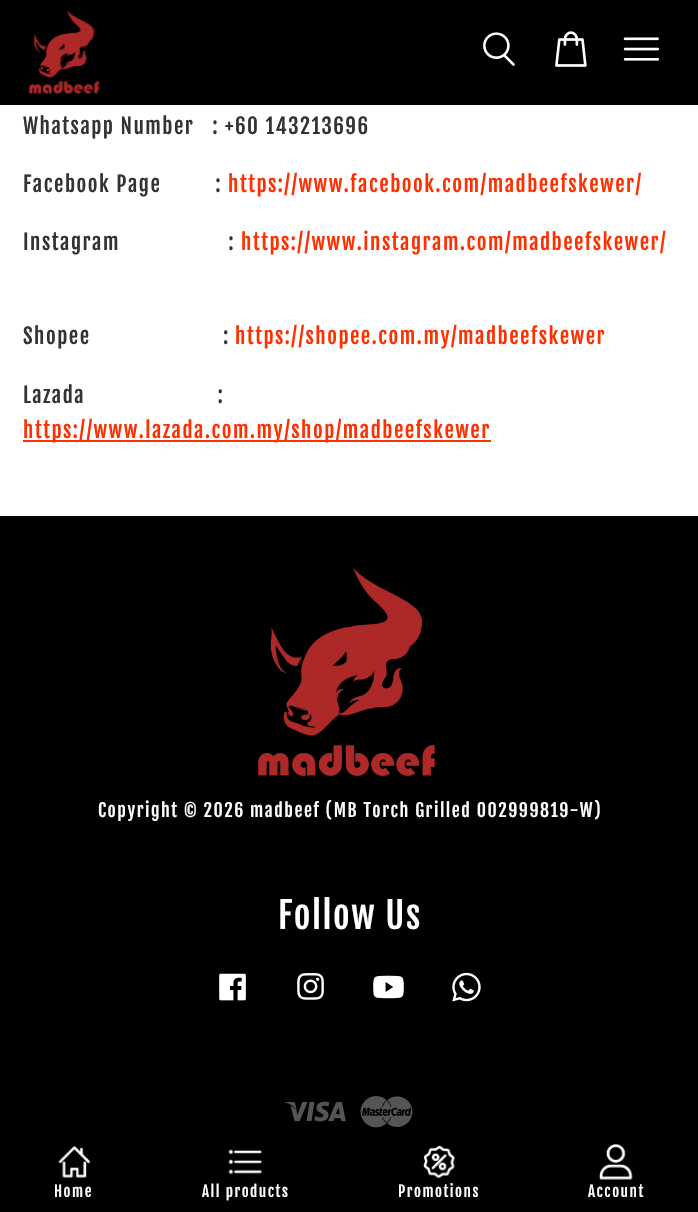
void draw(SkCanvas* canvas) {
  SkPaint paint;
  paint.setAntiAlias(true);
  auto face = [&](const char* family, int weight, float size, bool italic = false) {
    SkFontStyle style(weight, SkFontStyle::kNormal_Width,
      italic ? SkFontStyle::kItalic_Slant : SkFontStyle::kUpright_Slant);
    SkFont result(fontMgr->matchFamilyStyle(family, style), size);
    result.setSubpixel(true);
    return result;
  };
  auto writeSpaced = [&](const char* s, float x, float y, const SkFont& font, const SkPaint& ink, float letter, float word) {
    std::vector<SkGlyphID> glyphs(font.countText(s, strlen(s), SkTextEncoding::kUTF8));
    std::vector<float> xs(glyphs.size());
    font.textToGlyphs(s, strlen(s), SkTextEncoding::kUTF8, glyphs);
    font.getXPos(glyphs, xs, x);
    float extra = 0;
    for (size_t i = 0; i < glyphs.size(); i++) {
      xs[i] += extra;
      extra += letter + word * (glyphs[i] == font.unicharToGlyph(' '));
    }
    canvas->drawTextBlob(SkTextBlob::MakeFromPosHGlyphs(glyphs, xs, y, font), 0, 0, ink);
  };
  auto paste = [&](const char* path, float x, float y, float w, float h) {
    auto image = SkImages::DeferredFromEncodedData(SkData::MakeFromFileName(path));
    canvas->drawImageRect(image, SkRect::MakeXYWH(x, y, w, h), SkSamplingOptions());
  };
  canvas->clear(0xffffffff);
  paint.setColor(0xff000000);
  canvas->drawRect(SkRect::MakeXYWH(0, 0, 698, 105), paint);
  paste("img/1.png", 28, 10, 72, 85);
  paste("img/2.png", 483, 32, 32, 34);
  paste("img/3.png", 555, 31, 32, 36);
  paste("img/4.png", 623, 37, 37, 24);
  paint.setColor(0xffff2f00);
  canvas->drawRect(SkRect::MakeXYWH(23, 440, 468, 2), paint);
  paint.setColor(0xff000000);
  canvas->drawRect(SkRect::MakeXYWH(0, 516, 698, 696), paint);
  paste("img/5.png", 258, 568, 177, 209);
  paste("img/6.png", 219, 973, 27, 28);
  paste("img/7.png", 297, 973, 27, 27);
  paste("img/8.png", 373, 975, 31, 24);
  paste("img/9.png", 452, 972, 29, 30);
  paste("img/10.png", 285, 1101, 61, 21);
  paste("img/11.png", 360, 1096, 53, 32);
  paste("img/12.png", 58, 1146, 33, 32);
  paste("img/13.png", 228, 1149, 34, 25);
  paste("img/14.png", 423, 1145, 32, 34);
  paste("img/15.png", 599, 1144, 34, 36);
  auto f0 = face("Fjalla One", 400, 21);
  paint.setColor(0xff333333);
  writeSpaced("Whatsapp Number   : +60 143213696", 23, 134, f0, paint, 1.5f, 0);
  writeSpaced("Facebook Page         :", 23, 192, f0, paint, 1.5f, 0);
  paint.setColor(0xffff2f00);
  writeSpaced("https://www.facebook.com/madbeefskewer/", 228, 192, f0, paint, 1.5f, 0);
  paint.setColor(0xff333333);
  writeSpaced("Instagram                  :", 23, 250, f0, paint, 1.5f, 0);
  paint.setColor(0xffff2f00);
  writeSpaced("https://www.instagram.com/madbeefskewer/", 241, 250, f0, paint, 1.5f, 0);
  paint.setColor(0xff333333);
  writeSpaced("Shopee                      :", 23, 344, f0, paint, 1.5f, 0);
  paint.setColor(0xffff2f00);
  writeSpaced("https://shopee.com.my/madbeefskewer", 235, 344, f0, paint, 1.5f, 0);
  paint.setColor(0xff333333);
  writeSpaced("Lazada                      :", 23, 403, f0, paint, 1.5f, 0);
  paint.setColor(0xffff2f00);
  writeSpaced("https://www.lazada.com.my/shop/madbeefskewer", 23, 438, f0, paint, 1.5f, 0);
  auto f1 = face("Fjalla One", 400, 17.85f);
  paint.setColor(0xffffffff);
  writeSpaced("Copyright © 2026 madbeef (MB Torch Grilled 002999819-W)", 98, 817, f1, paint, 1.5f, 0);
  auto f2 = face("Fjalla One", 400, 36);
  writeSpaced("Follow Us", 278, 929, f2, paint, 1.5f, 0);
  auto f3 = face("Fjalla One", 400, 15);
  {
    const struct { const char* s; float x, y; } items[] = {
      {"Home", 54, 1197},
      {"All products", 202, 1197},
      {"Promotions", 398, 1197},
      {"Account", 588, 1197},
    };
    for (auto [s, x, y] : items) {
      writeSpaced(s, x, y, f3, paint, 1.5f, 0);
    }
  }
}
